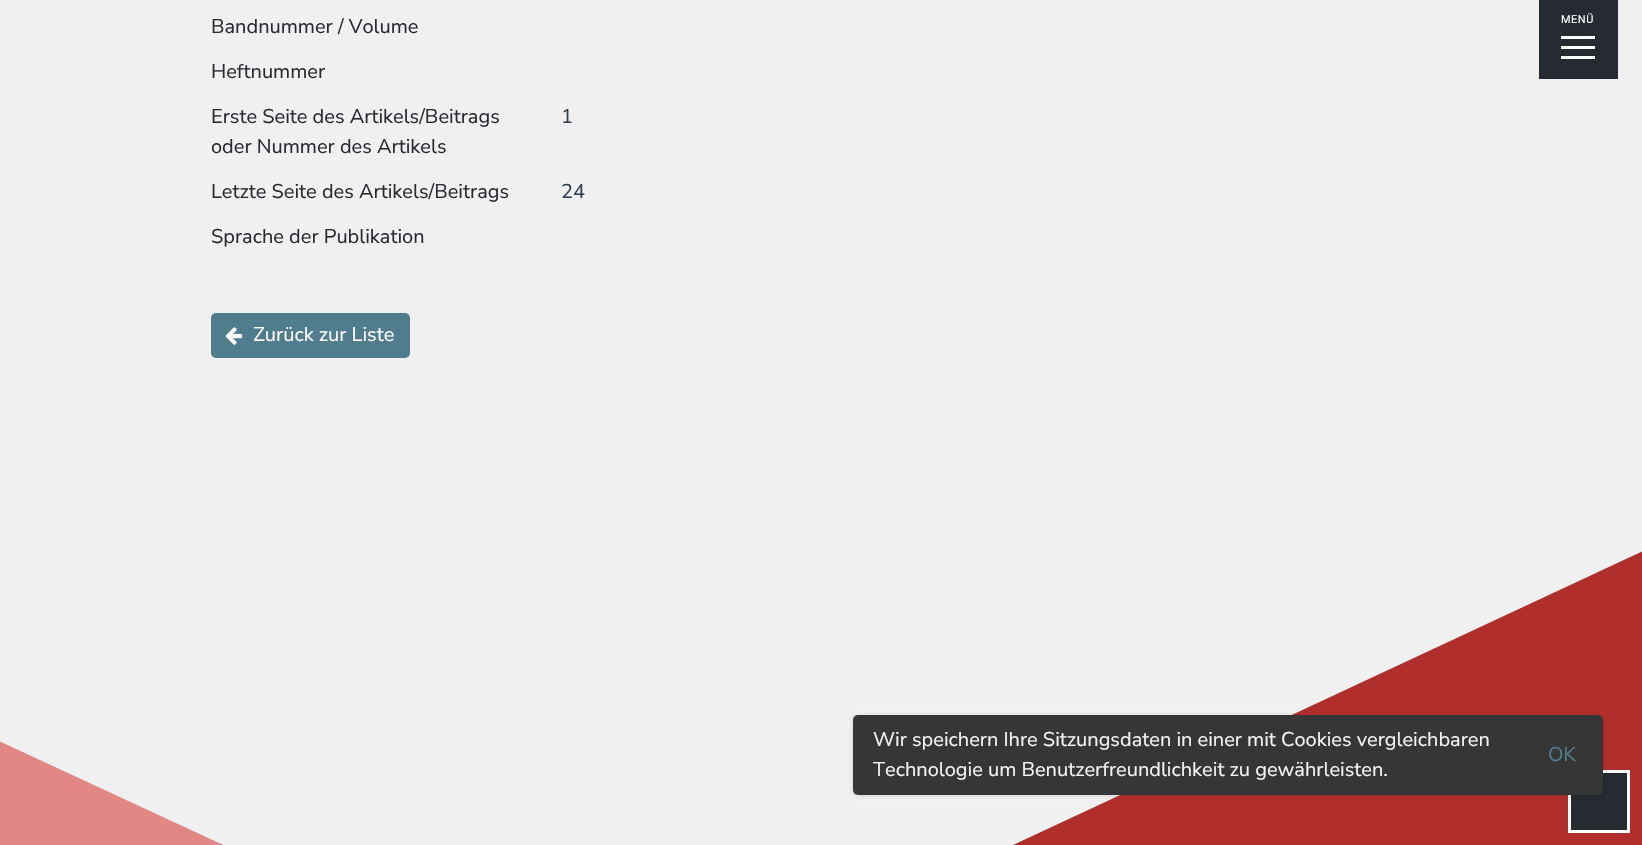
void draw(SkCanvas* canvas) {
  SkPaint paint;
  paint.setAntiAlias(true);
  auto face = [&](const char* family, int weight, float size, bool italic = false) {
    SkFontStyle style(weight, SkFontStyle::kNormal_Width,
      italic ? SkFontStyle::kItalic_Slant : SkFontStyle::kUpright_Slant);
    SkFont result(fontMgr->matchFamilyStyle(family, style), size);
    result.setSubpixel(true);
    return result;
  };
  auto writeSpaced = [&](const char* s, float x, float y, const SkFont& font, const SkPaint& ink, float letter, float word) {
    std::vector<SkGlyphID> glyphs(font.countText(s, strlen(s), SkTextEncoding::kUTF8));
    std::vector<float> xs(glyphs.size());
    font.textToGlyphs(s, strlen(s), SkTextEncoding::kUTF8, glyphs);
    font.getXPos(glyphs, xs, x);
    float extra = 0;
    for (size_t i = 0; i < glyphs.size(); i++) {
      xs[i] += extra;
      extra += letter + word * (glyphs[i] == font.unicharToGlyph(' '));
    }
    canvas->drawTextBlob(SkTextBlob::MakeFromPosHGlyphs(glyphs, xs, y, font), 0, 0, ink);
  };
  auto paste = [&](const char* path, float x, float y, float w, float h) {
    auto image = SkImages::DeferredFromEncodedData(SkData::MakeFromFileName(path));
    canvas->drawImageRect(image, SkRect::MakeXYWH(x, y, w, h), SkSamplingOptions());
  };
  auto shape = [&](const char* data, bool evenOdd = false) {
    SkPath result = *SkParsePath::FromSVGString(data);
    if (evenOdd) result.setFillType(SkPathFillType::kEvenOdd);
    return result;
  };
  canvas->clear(0xfff0f0f0);
  paint.setColor(0xff507d8e);
  canvas->drawRoundRect(SkRect::MakeXYWH(211, 313, 199, 45), 5, 5, paint);
  paste("img/1.png", 225, 327, 18, 18);
  {
    const struct { float x, y, w, h; SkColor color; } items[] = {
      {1539, 0, 79, 79, 0xff262a31},
      {1561, 36, 34, 3, 0xffffffff},
      {1561, 46, 34, 3, 0xffffffff},
      {1561, 56, 34, 3, 0xffffffff},
    };
    for (auto [x, y, w, h, color] : items) {
      paint.setColor(color);
      canvas->drawRect(SkRect::MakeXYWH(x, y, w, h), paint);
    }
  }
  paint.setColor(0xffb02f2c);
  canvas->drawPath(shape("M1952 407L-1 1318V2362H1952Z", true), paint);
  paint.setColor(0xff262a31);
  canvas->drawRect(SkRect::MakeXYWH(1569.5f, 771.5f, 59, 60), paint);
  paint.setStroke(true);
  paint.setStrokeWidth(3);
  paint.setColor(0xffffffff);
  canvas->drawRect(SkRect::MakeXYWH(1569.5f, 771.5f, 59, 60), paint);
  paint.setStroke(false);
  paint.setColor(0xffe18785);
  canvas->drawPath(shape("M-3 740V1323L620 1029Z", true), paint);
  paint.setColor(0x1f000000);
  paint.setMaskFilter(SkMaskFilter::MakeBlur(kNormal_SkBlurStyle, 2.5f));
  canvas->drawRoundRect(SkRect::MakeXYWH(853, 716, 750, 80), 5, 5, paint);
  paint.setMaskFilter(nullptr);
  paint.setColor(0xff363636);
  canvas->drawRoundRect(SkRect::MakeXYWH(853, 715, 750, 80), 5, 5, paint);
  auto f0 = face("Nunito Sans", 400, 20);
  paint.setColor(0xff262a31);
  {
    const struct { const char* s; float x, y; } items[] = {
      {"Bandnummer / Volume", 211, 33},
      {"Heftnummer", 211, 78},
      {"Erste Seite des Artikels/Beitrags", 211, 123},
      {"oder Nummer des Artikels", 211, 153},
    };
    for (auto [s, x, y] : items) {
      canvas->drawString(s, x, y, f0, paint);
    }
  }
  paint.setColor(0xff2c3e50);
  canvas->drawString("1", 561, 123, f0, paint);
  paint.setColor(0xff262a31);
  canvas->drawString("Letzte Seite des Artikels/Beitrags", 211, 198, f0, paint);
  paint.setColor(0xff2c3e50);
  canvas->drawString("24", 561, 198, f0, paint);
  paint.setColor(0xff262a31);
  canvas->drawString("Sprache der Publikation", 211, 243, f0, paint);
  paint.setColor(0xffffffff);
  canvas->drawString("Zurück zur Liste", 253, 341, f0, paint);
  auto f1 = face("Roboto", 400, 11);
  writeSpaced("MENÜ", 1561, 23, f1, paint, 0.5f, 0);
  paint.setColor(0xfff5f5f5);
  canvas->drawString("Wir speichern Ihre Sitzungsdaten in einer mit Cookies vergleichbaren", 873, 746, f0, paint);
  canvas->drawString("Technologie um Benutzerfreundlichkeit zu gewährleisten.", 873, 776, f0, paint);
  paint.setColor(0xff507d8e);
  canvas->drawString("OK", 1548, 761, f0, paint);
}
